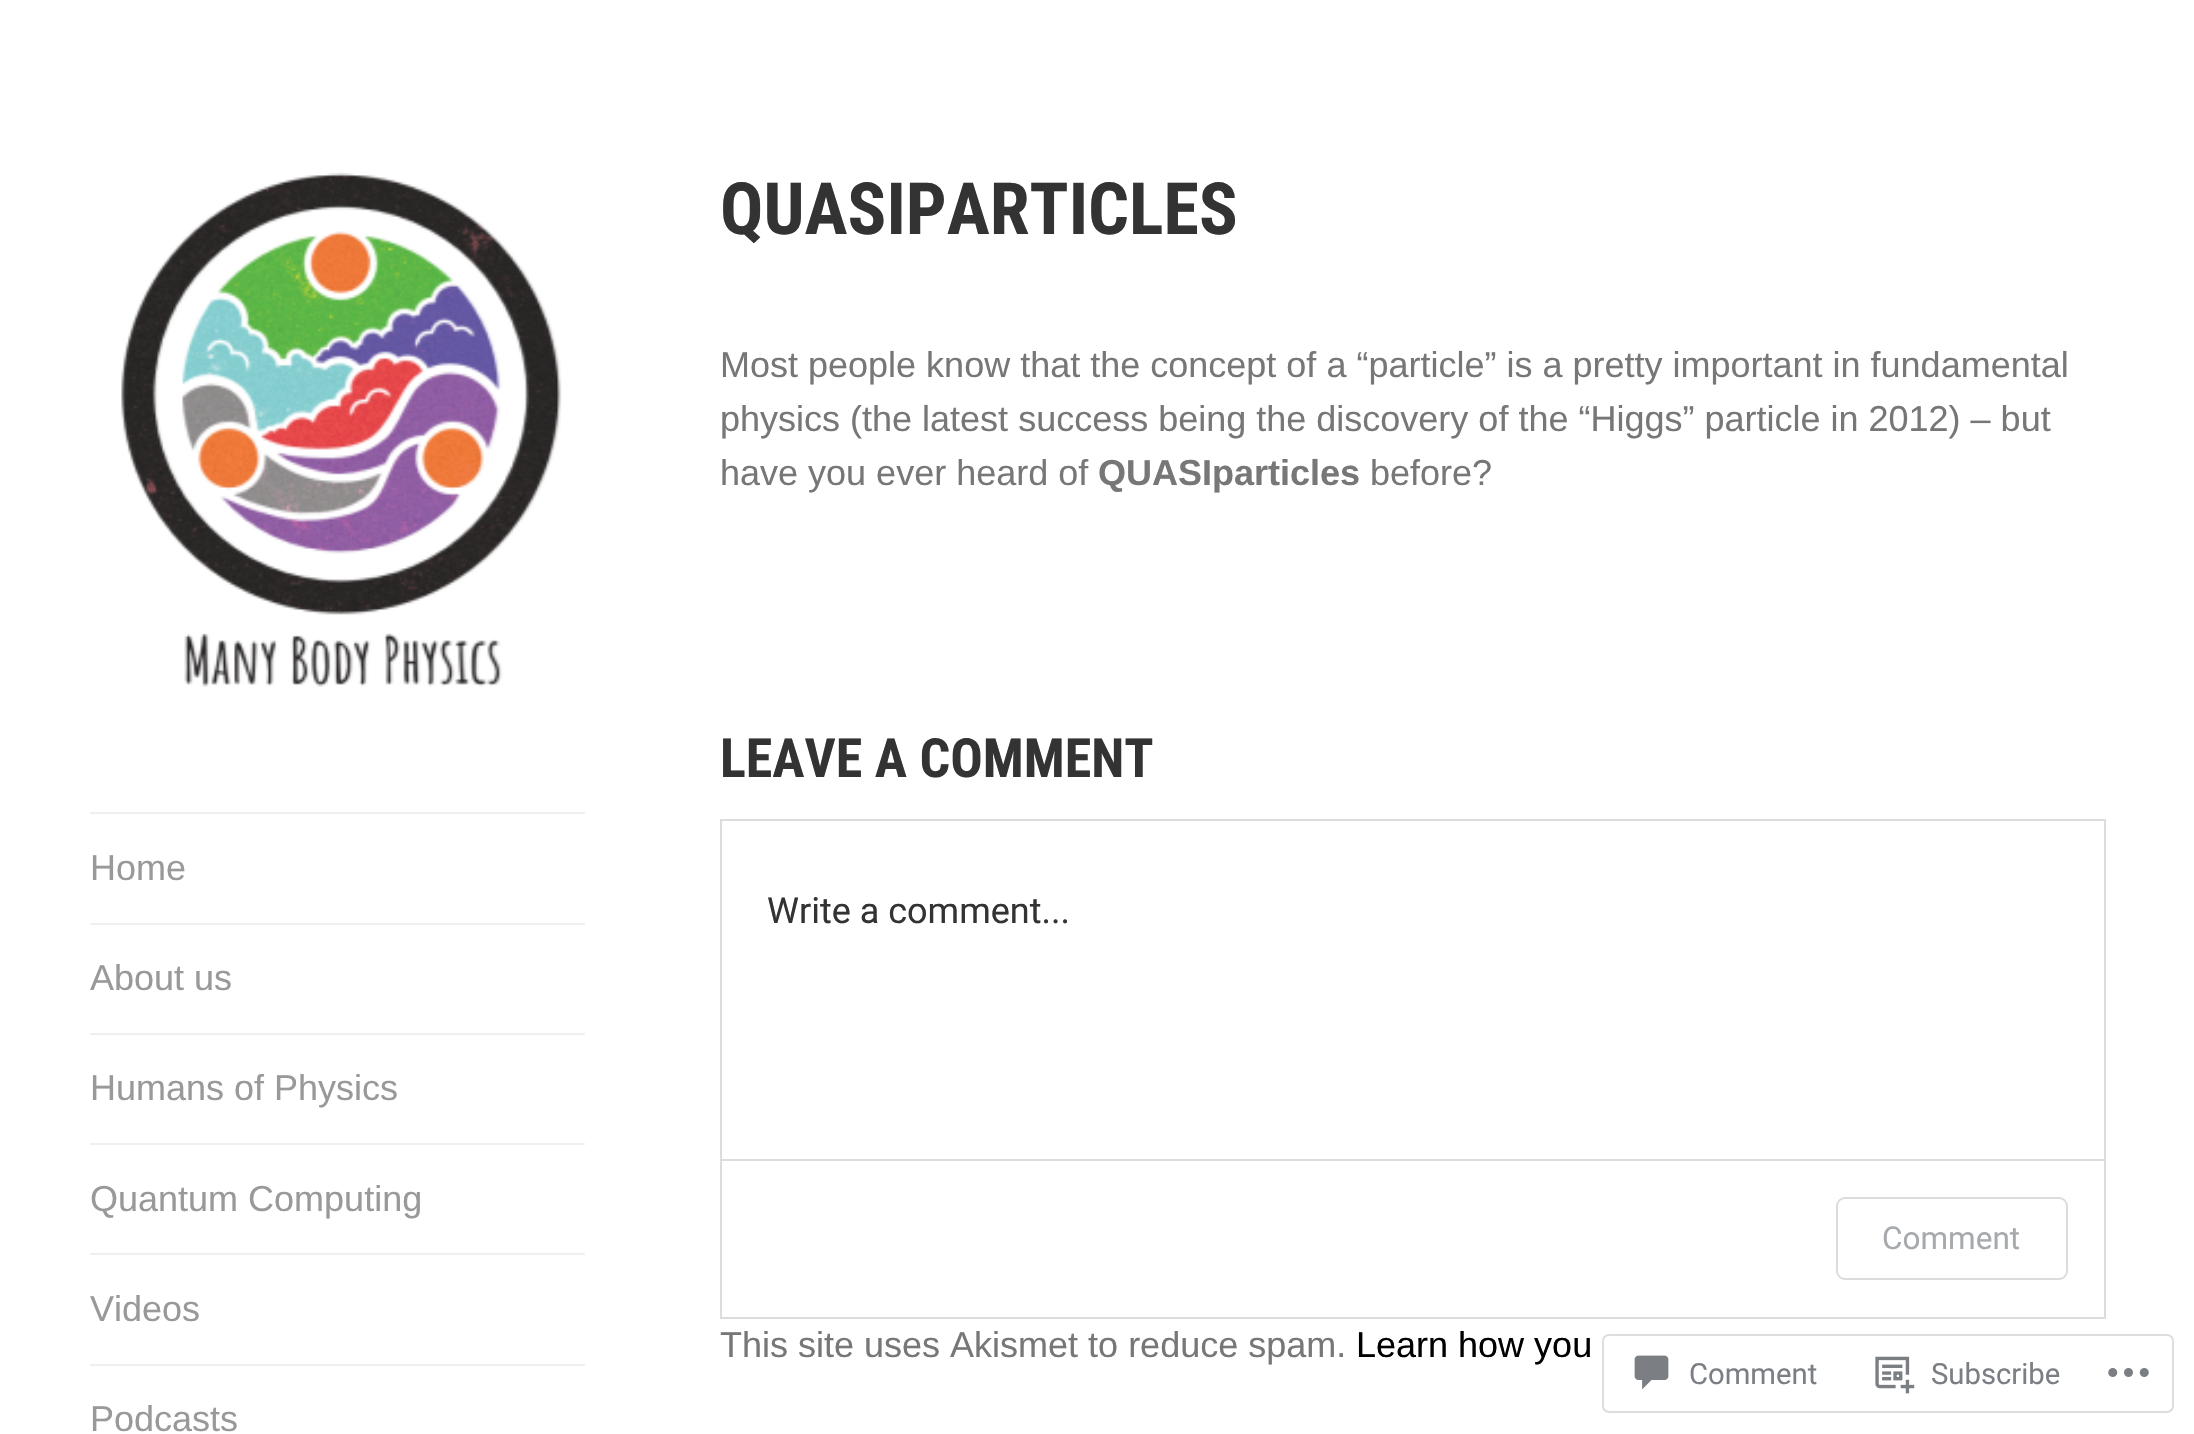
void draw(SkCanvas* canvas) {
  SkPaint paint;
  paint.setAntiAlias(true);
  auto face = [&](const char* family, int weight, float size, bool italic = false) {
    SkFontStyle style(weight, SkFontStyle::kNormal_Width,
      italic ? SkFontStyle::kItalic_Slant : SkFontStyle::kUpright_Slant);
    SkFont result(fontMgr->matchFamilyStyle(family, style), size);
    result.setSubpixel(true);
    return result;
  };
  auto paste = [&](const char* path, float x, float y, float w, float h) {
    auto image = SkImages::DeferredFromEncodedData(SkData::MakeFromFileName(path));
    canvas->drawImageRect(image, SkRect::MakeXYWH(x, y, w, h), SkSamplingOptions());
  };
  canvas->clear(0xffffffff);
  paste("img/1.png", 121, 172, 441, 515);
  {
    const struct { float x, y, w, h; SkColor color; } items[] = {
      {90, 812, 495, 2, 0xfff0f0f0},
      {90, 923, 495, 2, 0xfff0f0f0},
      {90, 1033, 495, 2, 0xfff0f0f0},
      {90, 1143, 495, 2, 0xfff0f0f0},
      {90, 1253, 495, 2, 0xfff0f0f0},
      {90, 1364, 495, 2, 0xfff0f0f0},
    };
    for (auto [x, y, w, h, color] : items) {
      paint.setColor(color);
      canvas->drawRect(SkRect::MakeXYWH(x, y, w, h), paint);
    }
  }
  paint.setStroke(true);
  paint.setStrokeWidth(2);
  paint.setColor(0xffdcdcde);
  canvas->drawRect(SkRect::MakeXYWH(721, 820, 1384, 498), paint);
  paint.setStroke(false);
  canvas->drawRect(SkRect::MakeXYWH(722, 1159, 1382, 2), paint);
  paint.setStroke(true);
  canvas->drawRoundRect(SkRect::MakeXYWH(1837, 1198, 230, 81), 8, 8, paint);
  paint.setColor(0xfadcdcde);
  canvas->drawRoundRect(SkRect::MakeXYWH(1603, 1335, 570, 77), 6, 6, paint);
  paste("img/2.png", 1634, 1355, 35, 35);
  paste("img/3.png", 1875, 1356, 40, 38);
  paste("img/4.png", 2108, 1368, 41, 9);
  auto f0 = face("Arimo", 400, 36);
  paint.setStroke(false);
  paint.setColor(0xff999999);
  {
    const struct { const char* s; float x, y; } items[] = {
      {"Home", 90, 880},
      {"About us", 90, 990},
      {"Humans of Physics", 90, 1100},
      {"Quantum Computing", 90, 1211},
      {"Videos", 90, 1321},
      {"Podcasts", 90, 1431},
    };
    for (auto [s, x, y] : items) {
      canvas->drawString(s, x, y, f0, paint);
    }
  }
  auto f1 = face("Roboto Condensed", 700, 72);
  paint.setColor(0xff333333);
  canvas->drawString("QUASIPARTICLES", 720, 234, f1, paint);
  paint.setColor(0xff777777);
  {
    const struct { const char* s; float x, y; } items[] = {
      {"Most people know that the concept of a “particle” is a pretty important in fundamental", 720, 377},
      {"physics (the latest success being the discovery of the “Higgs” particle in 2012) – but", 720, 431},
      {"have you ever heard of", 720, 485},
    };
    for (auto [s, x, y] : items) {
      canvas->drawString(s, x, y, f0, paint);
    }
  }
  auto f2 = face("Arimo", 700, 36);
  canvas->drawString("QUASIparticles", 1098, 485, f2, paint);
  canvas->drawString("before?", 1370, 485, f0, paint);
  auto f3 = face("Roboto Condensed", 700, 54);
  paint.setColor(0xff333333);
  canvas->drawString("LEAVE A COMMENT", 720, 777, f3, paint);
  auto f4 = face("Roboto", 400, 36);
  canvas->drawString("Write a comment...", 767, 923, f4, paint);
  auto f5 = face("Roboto", 400, 31.5f);
  paint.setColor(0xffa7aaad);
  canvas->drawString("Comment", 1882, 1249, f5, paint);
  paint.setColor(0xff777777);
  canvas->drawString("This site uses Akismet to reduce spam.", 720, 1357, f0, paint);
  paint.setColor(0xff000000);
  canvas->drawString("Learn how you", 1356, 1357, f0, paint);
  auto f6 = face("Roboto", 400, 29.25f);
  paint.setColor(0xff7b7f85);
  canvas->drawString("Comment", 1689, 1384, f6, paint);
  canvas->drawString("Subscribe", 1931, 1384, f6, paint);
}
